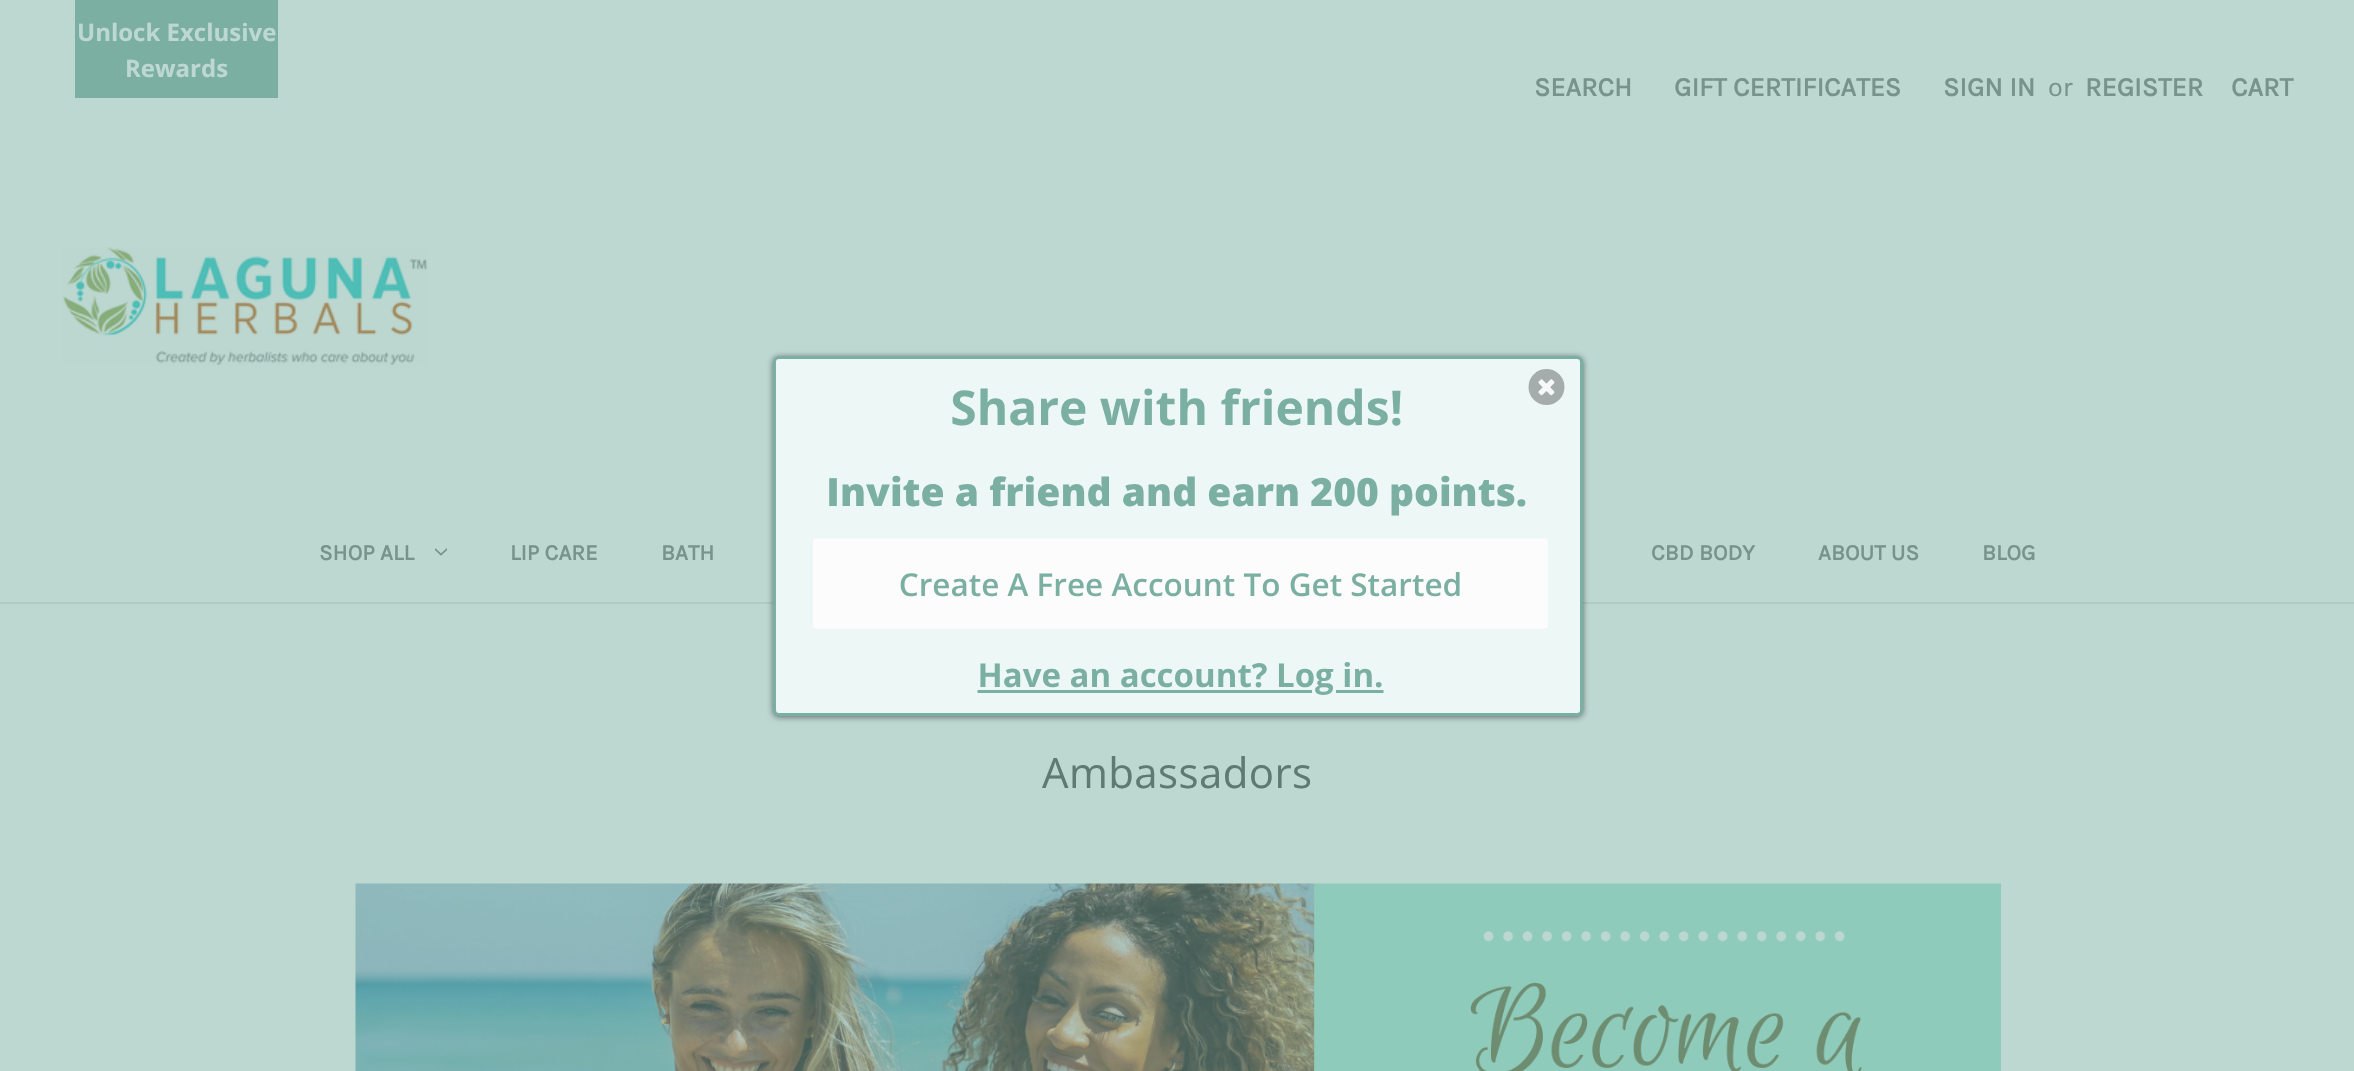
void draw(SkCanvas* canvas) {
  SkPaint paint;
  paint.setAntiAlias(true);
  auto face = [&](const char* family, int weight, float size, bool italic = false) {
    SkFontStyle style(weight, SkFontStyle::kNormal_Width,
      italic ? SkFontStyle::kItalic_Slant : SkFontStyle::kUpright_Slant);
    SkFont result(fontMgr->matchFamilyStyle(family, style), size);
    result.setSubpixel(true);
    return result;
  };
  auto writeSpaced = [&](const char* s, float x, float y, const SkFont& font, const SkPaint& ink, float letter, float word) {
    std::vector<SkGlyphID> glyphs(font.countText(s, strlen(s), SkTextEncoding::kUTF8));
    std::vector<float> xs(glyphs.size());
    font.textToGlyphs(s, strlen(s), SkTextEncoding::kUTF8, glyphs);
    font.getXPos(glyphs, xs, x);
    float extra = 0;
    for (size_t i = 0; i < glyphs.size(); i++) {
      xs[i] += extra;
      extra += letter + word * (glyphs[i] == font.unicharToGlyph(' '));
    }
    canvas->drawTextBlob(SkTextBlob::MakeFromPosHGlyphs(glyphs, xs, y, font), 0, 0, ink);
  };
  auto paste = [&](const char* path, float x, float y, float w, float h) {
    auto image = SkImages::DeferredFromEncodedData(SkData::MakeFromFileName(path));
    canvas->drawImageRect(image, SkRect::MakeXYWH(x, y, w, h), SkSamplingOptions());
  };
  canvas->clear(0xffbdd7d1);
  paint.setColor(0xff7aafa2);
  canvas->drawRect(SkRect::MakeXYWH(75, 0, 203, 98), paint);
  paint.setColor(0xffb0cac4);
  canvas->drawRect(SkRect::MakeXYWH(0, 602, 2354, 2), paint);
  paste("img/1.png", 62, 247, 366, 119);
  paste("img/2.png", 435, 548, 12, 8);
  paint.setColor(0x80000000);
  paint.setMaskFilter(SkMaskFilter::MakeBlur(kNormal_SkBlurStyle, 3));
  canvas->drawRoundRect(SkRect::MakeXYWH(773, 357, 810, 360), 6, 6, paint);
  paint.setMaskFilter(nullptr);
  paint.setColor(0xffedf8f6);
  canvas->drawRoundRect(SkRect::MakeXYWH(774.5f, 357.5f, 807, 357), 4.5f, 4.5f, paint);
  paint.setStroke(true);
  paint.setStrokeWidth(3);
  paint.setColor(0xff7aafa2);
  canvas->drawRoundRect(SkRect::MakeXYWH(774.5f, 357.5f, 807, 357), 4.5f, 4.5f, paint);
  paste("img/3.png", 813, 369, 752, 326);
  paste("img/4.png", 355, 883, 1646, 188);
  auto f0 = face("Open Sans", 700, 24);
  paint.setStroke(false);
  paint.setColor(0xffbdd7d1);
  canvas->drawString("Unlock Exclusive", 77, 41, f0, paint);
  canvas->drawString("Rewards", 125, 77, f0, paint);
  auto f1 = face("Karla", 700, 27);
  paint.setColor(0xff78928c);
  {
    const struct { const char* s; float x, y; } items[] = {
      {"SEARCH", 1534, 96},
      {"GIFT CERTIFICATES", 1674, 96},
      {"SIGN IN", 1943, 96},
    };
    for (auto [s, x, y] : items) {
      canvas->drawString(s, x, y, f1, paint);
    }
  }
  auto f2 = face("Karla", 400, 27);
  canvas->drawString("or", 2048, 96, f2, paint);
  canvas->drawString("REGISTER", 2085, 96, f1, paint);
  canvas->drawString("CART", 2231, 96, f1, paint);
  auto f3 = face("Karla", 700, 22.5f);
  {
    const struct { const char* s; float x, y; } items[] = {
      {"SHOP ALL", 319, 560},
      {"LIP CARE", 510, 560},
      {"BATH", 661, 560},
      {"CBD BODY", 1651, 560},
      {"ABOUT US", 1818, 560},
      {"BLOG", 1982, 560},
    };
    for (auto [s, x, y] : items) {
      canvas->drawString(s, x, y, f3, paint);
    }
  }
  auto f4 = face("Open Sans", 400, 42);
  paint.setColor(0xff5f7a73);
  writeSpaced("Ambassadors", 1042, 788, f4, paint, 0.4f, 0);
}
